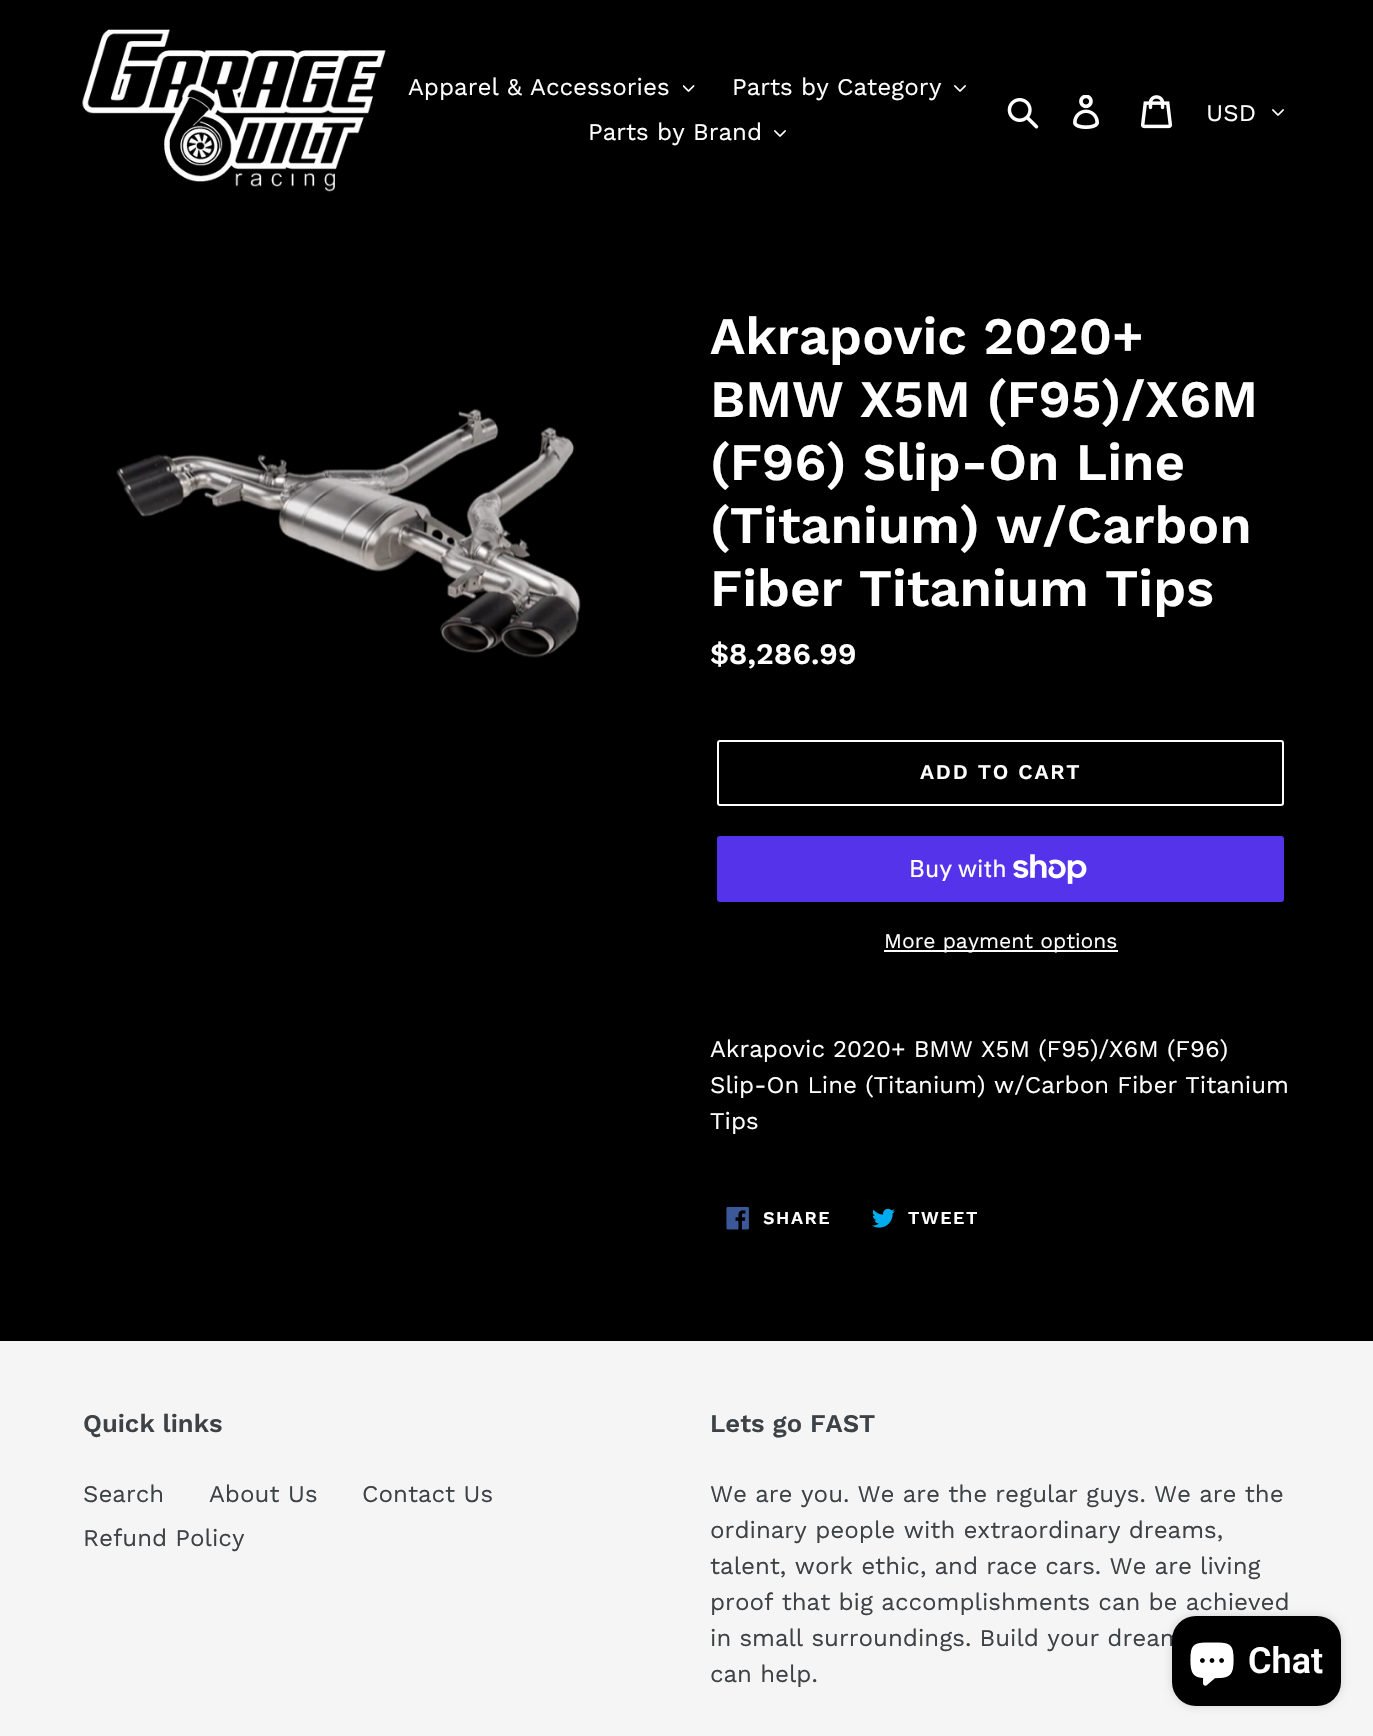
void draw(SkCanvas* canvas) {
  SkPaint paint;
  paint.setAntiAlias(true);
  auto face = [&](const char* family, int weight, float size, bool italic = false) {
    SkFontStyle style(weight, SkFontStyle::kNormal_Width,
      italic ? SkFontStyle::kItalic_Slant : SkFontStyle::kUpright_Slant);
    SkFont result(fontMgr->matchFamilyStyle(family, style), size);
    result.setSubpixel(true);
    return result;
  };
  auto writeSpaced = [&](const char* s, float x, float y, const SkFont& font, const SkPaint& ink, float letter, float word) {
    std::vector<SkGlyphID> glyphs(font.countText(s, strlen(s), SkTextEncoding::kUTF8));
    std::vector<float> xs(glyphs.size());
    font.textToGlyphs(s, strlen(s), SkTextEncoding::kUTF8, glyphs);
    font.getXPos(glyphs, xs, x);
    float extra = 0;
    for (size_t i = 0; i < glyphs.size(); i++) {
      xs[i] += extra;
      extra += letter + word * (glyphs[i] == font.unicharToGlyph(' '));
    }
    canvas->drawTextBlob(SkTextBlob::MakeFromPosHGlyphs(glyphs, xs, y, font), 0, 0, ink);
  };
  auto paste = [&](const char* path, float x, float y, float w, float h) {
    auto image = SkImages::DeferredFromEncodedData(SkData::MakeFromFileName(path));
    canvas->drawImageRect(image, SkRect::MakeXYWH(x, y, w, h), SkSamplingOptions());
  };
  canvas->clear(0xff000000);
  paste("img/1.png", 82, 29, 304, 164);
  paste("img/2.png", 683, 85, 12, 7);
  paste("img/3.png", 954, 85, 12, 7);
  paste("img/3.png", 774, 130, 12, 7);
  paste("img/4.png", 1007, 98, 32, 31);
  paste("img/5.png", 1073, 95, 26, 34);
  paste("img/6.png", 1141, 95, 31, 34);
  paste("img/3.png", 1272, 109, 12, 7);
  paste("img/7.png", 116, 409, 465, 249);
  paint.setStroke(true);
  paint.setStrokeWidth(2);
  paint.setColor(0xffffffff);
  canvas->drawRoundRect(SkRect::MakeXYWH(718, 741, 565, 64), 2, 2, paint);
  paint.setStroke(false);
  paint.setColor(0xff5433eb);
  canvas->drawRoundRect(SkRect::MakeXYWH(717, 836, 567, 66), 3, 3, paint);
  paste("img/8.png", 1013, 854, 74, 30);
  paint.setColor(0xffffffff);
  canvas->drawRect(SkRect::MakeXYWH(884, 950, 234, 2), paint);
  paste("img/9.png", 726, 1207, 23, 23);
  paste("img/10.png", 872, 1208, 23, 20);
  paint.setColor(0xfff5f5f5);
  canvas->drawRect(SkRect::MakeXYWH(0, 1341, 1373, 395), paint);
  paint.setColor(0x26000000);
  paint.setMaskFilter(SkMaskFilter::MakeBlur(kNormal_SkBlurStyle, 4));
  canvas->drawRoundRect(SkRect::MakeXYWH(1172, 1616, 169, 90), 24, 24, paint);
  paint.setMaskFilter(nullptr);
  auto f0 = face("Work Sans", 400, 24);
  paint.setColor(0xffffffff);
  {
    const struct { const char* s; float x, y; } items[] = {
      {"Apparel & Accessories", 408, 95},
      {"Parts by Category", 732, 95},
      {"Parts by Brand", 588, 140},
      {"USD", 1206, 121},
    };
    for (auto [s, x, y] : items) {
      canvas->drawString(s, x, y, f0, paint);
    }
  }
  auto f1 = face("Work Sans", 600, 52.5f);
  {
    const struct { const char* s; float x, y; } items[] = {
      {"Akrapovic 2020+", 710, 354},
      {"BMW X5M (F95)/X6M", 710, 417},
      {"(F96) Slip-On Line", 710, 480},
      {"(Titanium) w/Carbon", 710, 543},
      {"Fiber Titanium Tips", 710, 606},
    };
    for (auto [s, x, y] : items) {
      canvas->drawString(s, x, y, f1, paint);
    }
  }
  auto f2 = face("Work Sans", 600, 30);
  canvas->drawString("$8,286.99", 710, 664, f2, paint);
  auto f3 = face("Work Sans", 600, 21);
  writeSpaced("ADD TO CART", 920, 779, f3, paint, 1.75f, 0);
  auto f4 = face("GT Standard", 400, 24);
  canvas->drawString("Buy with", 909, 877, f4, paint);
  auto f5 = face("Work Sans", 400, 21);
  canvas->drawString("More payment options", 884, 948, f5, paint);
  {
    const struct { const char* s; float x, y; } items[] = {
      {"Akrapovic 2020+ BMW X5M (F95)/X6M (F96)", 710, 1057},
      {"Slip-On Line (Titanium) w/Carbon Fiber Titanium", 710, 1093},
      {"Tips", 710, 1129},
    };
    for (auto [s, x, y] : items) {
      canvas->drawString(s, x, y, f0, paint);
    }
  }
  auto f6 = face("Work Sans", 600, 18);
  writeSpaced("SHARE", 763, 1224, f6, paint, 1.5f, 0);
  writeSpaced("TWEET", 908, 1224, f6, paint, 1.5f, 0);
  auto f7 = face("Work Sans", 600, 25.5f);
  paint.setColor(0xff3d4246);
  canvas->drawString("Quick links", 83, 1432, f7, paint);
  {
    const struct { const char* s; float x, y; } items[] = {
      {"Search", 83, 1502},
      {"About Us", 209, 1502},
      {"Contact Us", 362, 1502},
      {"Refund Policy", 83, 1546},
    };
    for (auto [s, x, y] : items) {
      canvas->drawString(s, x, y, f0, paint);
    }
  }
  canvas->drawString("Lets go FAST", 710, 1432, f7, paint);
  {
    const struct { const char* s; float x, y; } items[] = {
      {"We are you. We are the regular guys. We are the", 710, 1502},
      {"ordinary people with extraordinary dreams,", 710, 1538},
      {"talent, work ethic, and race cars. We are living", 710, 1574},
      {"proof that big accomplishments can be achieved", 710, 1610},
      {"in small surroundings. Build your dream", 710, 1646},
      {"can help.", 710, 1682},
    };
    for (auto [s, x, y] : items) {
      canvas->drawString(s, x, y, f0, paint);
    }
  }
  paint.setColor(0xff000000);
  canvas->drawRoundRect(SkRect::MakeXYWH(1172, 1616, 169, 90), 24, 24, paint);
  paste("img/11.png", 1190, 1642, 44, 44);
  auto f8 = face("Roboto", 600, 36);
  paint.setColor(0xffffffff);
  canvas->drawString("Chat", 1248, 1673, f8, paint);
}
